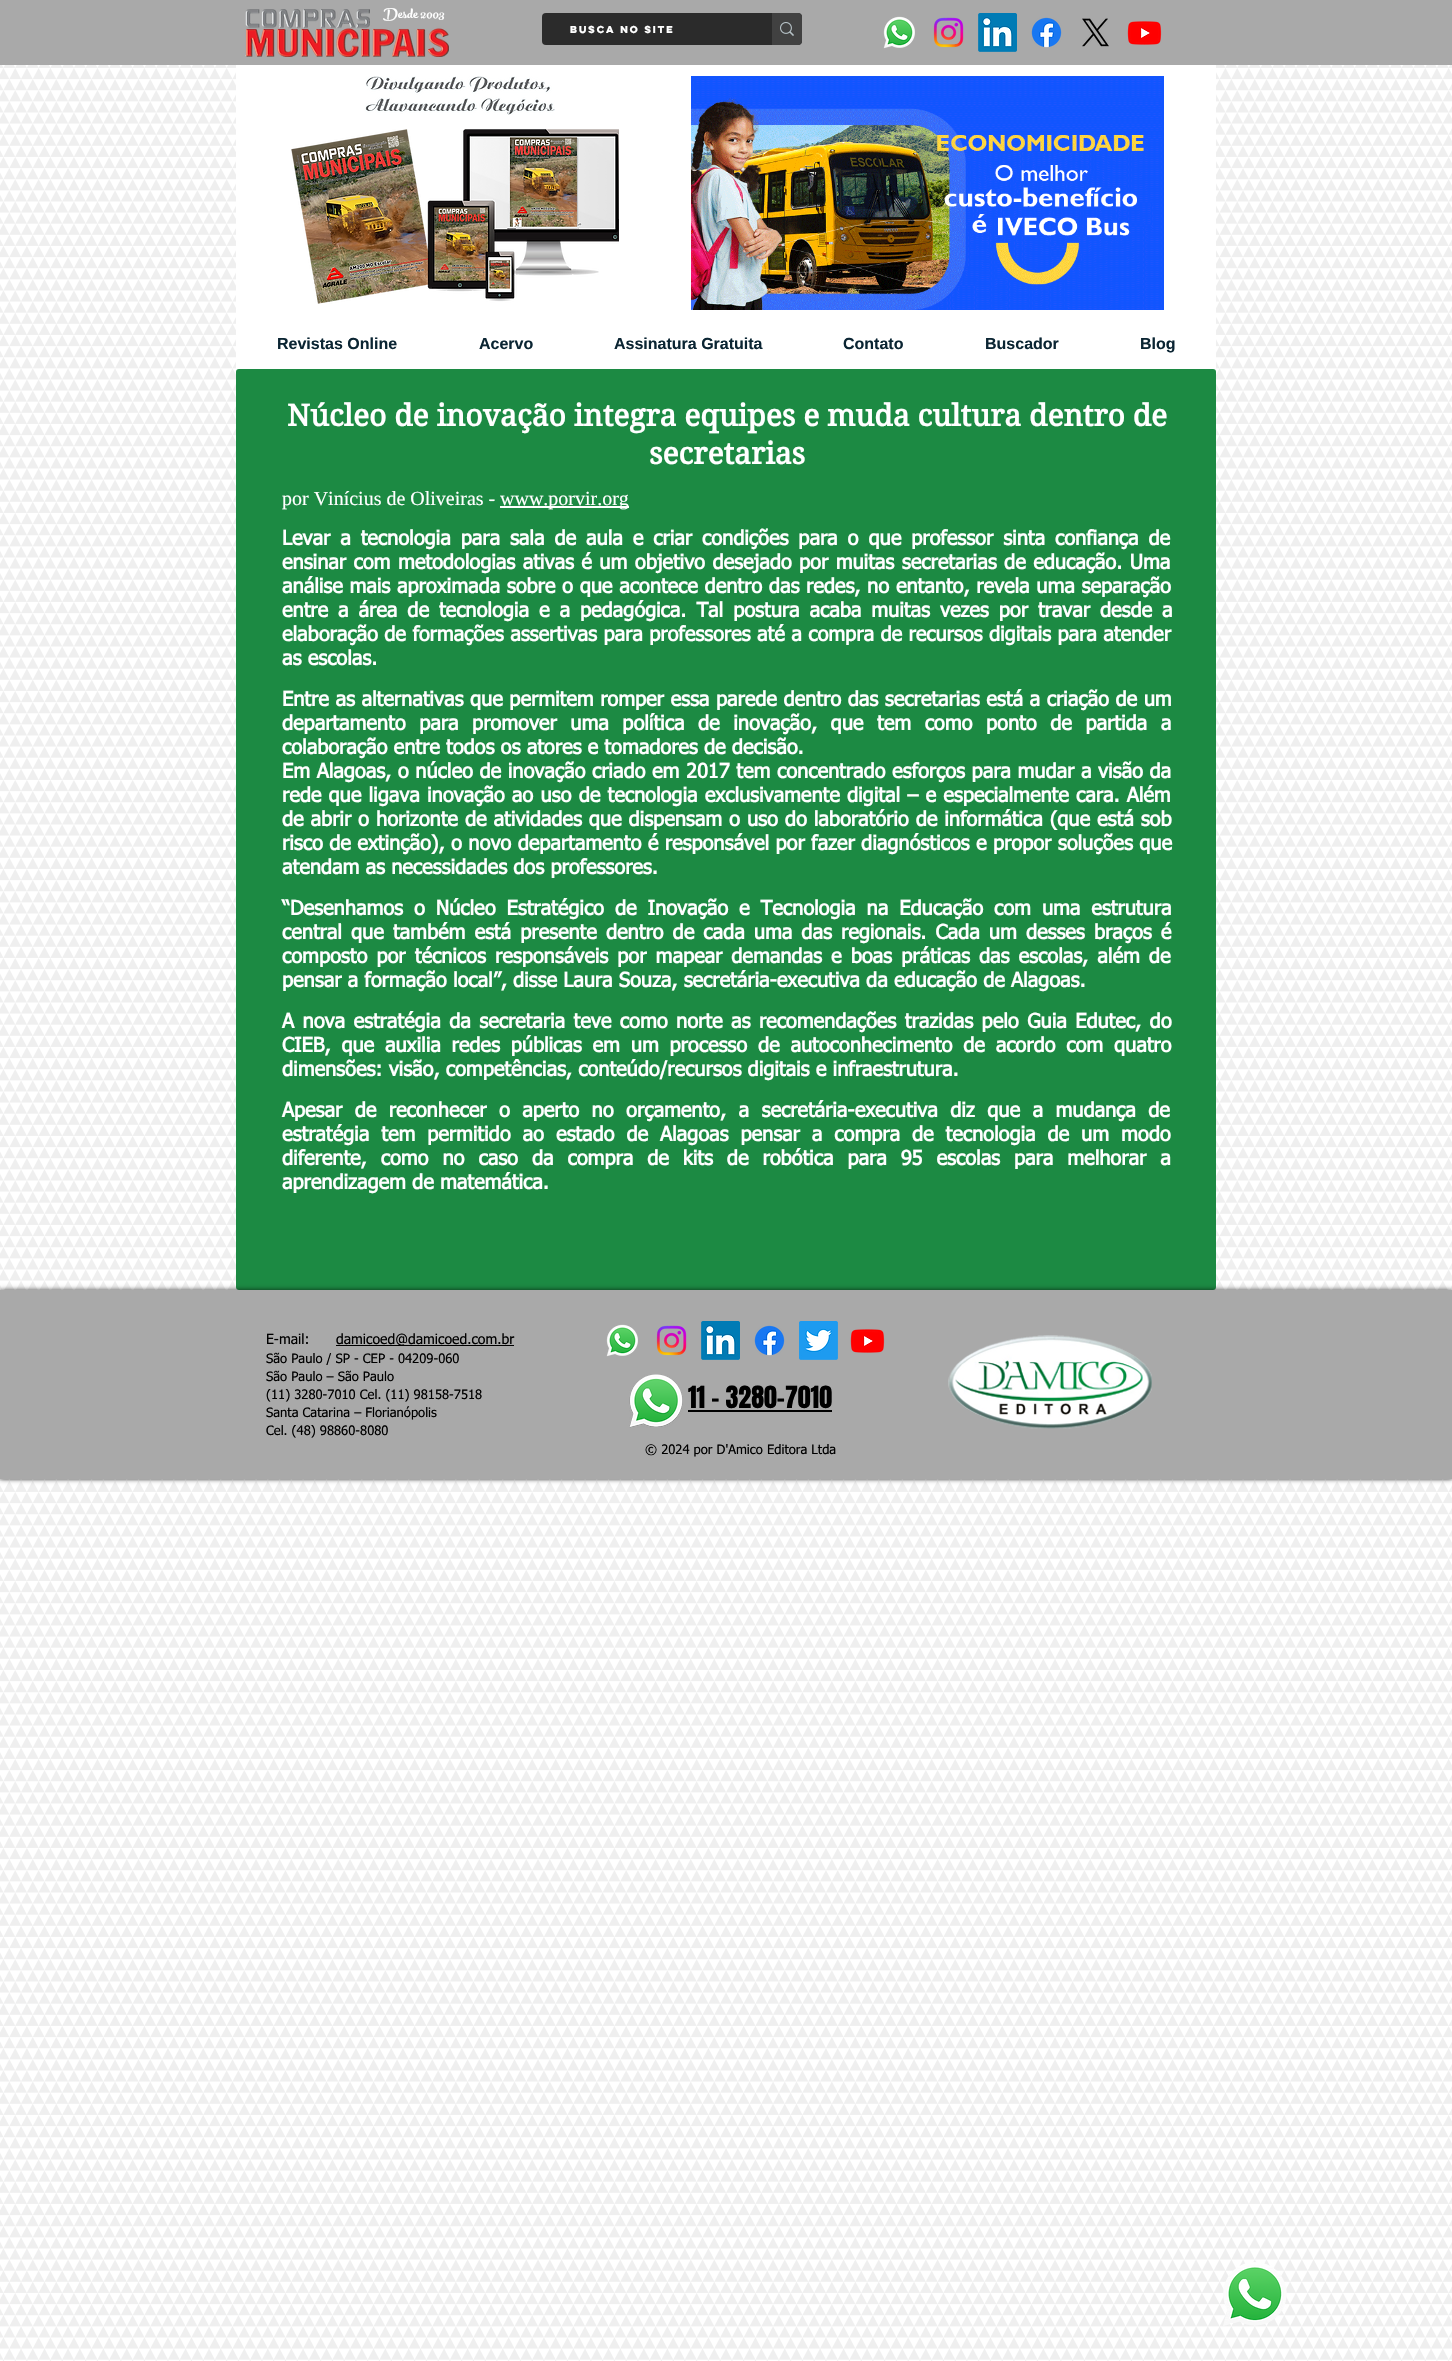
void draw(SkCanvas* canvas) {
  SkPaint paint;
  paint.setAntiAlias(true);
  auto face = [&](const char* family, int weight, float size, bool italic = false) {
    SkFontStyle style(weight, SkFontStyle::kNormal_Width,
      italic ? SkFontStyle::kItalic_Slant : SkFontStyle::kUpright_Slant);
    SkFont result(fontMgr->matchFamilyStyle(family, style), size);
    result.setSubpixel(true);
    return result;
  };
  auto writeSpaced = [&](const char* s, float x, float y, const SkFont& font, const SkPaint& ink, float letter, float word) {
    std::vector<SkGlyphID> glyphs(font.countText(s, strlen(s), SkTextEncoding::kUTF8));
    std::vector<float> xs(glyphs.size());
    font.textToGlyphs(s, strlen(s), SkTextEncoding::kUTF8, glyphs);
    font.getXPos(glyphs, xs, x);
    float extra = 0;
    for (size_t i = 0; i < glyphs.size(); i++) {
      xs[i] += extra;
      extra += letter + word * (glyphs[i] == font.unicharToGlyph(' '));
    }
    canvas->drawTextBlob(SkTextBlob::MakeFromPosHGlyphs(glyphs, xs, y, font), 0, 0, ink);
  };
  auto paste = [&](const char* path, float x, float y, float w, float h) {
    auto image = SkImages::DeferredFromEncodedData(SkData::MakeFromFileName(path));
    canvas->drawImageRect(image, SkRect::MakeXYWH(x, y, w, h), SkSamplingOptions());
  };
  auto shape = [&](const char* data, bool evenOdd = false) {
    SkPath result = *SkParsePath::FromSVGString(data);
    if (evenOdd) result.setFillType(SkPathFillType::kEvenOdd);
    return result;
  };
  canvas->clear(0xffffffff);
  paint.setColor(0xffa9a9a9);
  canvas->drawRect(SkRect::MakeXYWH(0, 0, 1452, 65), paint);
  paste("img/1.png", 245, 9, 204, 48);
  paint.setColor(0xff2b2b2b);
  canvas->drawRoundRect(SkRect::MakeXYWH(542, 13, 260, 32), 4, 4, paint);
  paint.setColor(0xff414141);
  canvas->drawPath(shape("M772 13H798C800 13 802 15 802 17V41C802 43 800 45 798 45H772Z"), paint);
  paste("img/2.png", 780, 22, 14, 14);
  paste("img/3.png", 883, 16, 32, 33);
  paste("img/4.png", 933, 17, 31, 31);
  paste("img/5.png", 978, 13, 39, 39);
  paste("img/6.png", 1031, 17, 31, 31);
  paste("img/7.png", 1082, 18, 27, 29);
  paste("img/8.png", 1127, 21, 35, 24);
  paste("img/16.png", 0, 65, 1452, 2296);
  paint.setColor(0xffffffff);
  canvas->drawRect(SkRect::MakeXYWH(236, 65, 980, 304), paint);
  paste("img/9.png", 365, 76, 190, 39);
  paste("img/10.png", 691, 76, 473, 234);
  paste("img/11.png", 291, 129, 328, 175);
  paint.setColor(0xff1c8a43);
  canvas->drawRoundRect(SkRect::MakeXYWH(236, 369, 980, 921), 3, 3, paint);
  paint.setColor(0xffffffff);
  canvas->drawRect(SkRect::MakeXYWH(500, 506, 129, 2), paint);
  paint.setColor(0xb3000000);
  paint.setMaskFilter(SkMaskFilter::MakeBlur(kNormal_SkBlurStyle, 2.5f));
  canvas->drawRect(SkRect::MakeXYWH(0, 1290, 1452, 189), paint);
  paint.setMaskFilter(nullptr);
  paint.setColor(0xffa9a9a9);
  canvas->drawRect(SkRect::MakeXYWH(0, 1290, 1452, 189), paint);
  paint.setColor(0xff000000);
  canvas->drawRect(SkRect::MakeXYWH(336, 1345, 178, 1), paint);
  paste("img/3.png", 606, 1324, 32, 33);
  paste("img/4.png", 656, 1325, 31, 31);
  paste("img/5.png", 701, 1321, 39, 39);
  paste("img/6.png", 754, 1325, 31, 31);
  paste("img/12.png", 799, 1321, 39, 39);
  paste("img/8.png", 850, 1329, 35, 24);
  paste("img/13.png", 948, 1335, 204, 94);
  paste("img/14.png", 629, 1374, 54, 54);
  canvas->drawRect(SkRect::MakeXYWH(688, 1410, 144, 2), paint);
  paste("img/15.png", 1223, 2262, 64, 64);
  auto f0 = face("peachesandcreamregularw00", 400, 20);
  paint.setColor(0xffffffff);
  writeSpaced("Desde 2003", 383, 18, f0, paint, 0.25f, 0);
  auto f1 = face("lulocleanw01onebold", 700, 9);
  canvas->drawString("Busca no site", 570, 33, f1, paint);
  auto f2 = face("Liberation Sans", 700, 16);
  paint.setColor(0xff0b2533);
  {
    const struct { const char* s; float x, y; } items[] = {
      {"Revistas Online", 277, 349},
      {"Acervo", 479, 349},
      {"Assinatura Gratuita", 614, 349},
      {"Contato", 843, 349},
      {"Buscador", 985, 349},
      {"Blog", 1140, 349},
    };
    for (auto [s, x, y] : items) {
      canvas->drawString(s, x, y, f2, paint);
    }
  }
  auto f3 = face("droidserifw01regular", 700, 30);
  paint.setColor(0xffffffff);
  canvas->drawString("Núcleo de inovação integra equipes e muda cultura dentro de", 287, 426, f3, paint);
  canvas->drawString("secretarias", 649, 464, f3, paint);
  auto f4 = face("Liberation Serif", 400, 20);
  canvas->drawString("por Vinícius de Oliveiras -", 282, 505, f4, paint);
  canvas->drawString("www.porvir.org", 500, 505, f4, paint);
  auto f5 = face("tahoma", 700, 20);
  writeSpaced("Levar a tecnologia para sala de aula e criar condições para o que professor sinta confiança de", 282, 545, f5, paint, 0, 3.75f);
  writeSpaced("ensinar com metodologias ativas é um objetivo desejado por muitas secretarias de educação. Uma", 282, 569, f5, paint, 0, 1.25f);
  writeSpaced("análise mais aproximada sobre o que acontece dentro das redes, no entanto, revela uma separação", 282, 593, f5, paint, 0, 0.5f);
  writeSpaced("entre a área de tecnologia e a pedagógica. Tal postura acaba muitas vezes por travar desde a", 282, 617, f5, paint, 0, 3.75f);
  writeSpaced("elaboração de formações assertivas para professores até a compra de recursos digitais para atender", 282, 641, f5, paint, 0, 0.25f);
  canvas->drawString("as escolas.", 282, 665, f5, paint);
  writeSpaced("Entre as alternativas que permitem romper essa parede dentro das secretarias está a criação de um", 282, 706, f5, paint, 0, 0.4f);
  writeSpaced("departamento para promover uma política de inovação, que tem como ponto de partida a", 282, 730, f5, paint, 0, 7.4f);
  canvas->drawString("colaboração entre todos os atores e tomadores de decisão.", 282, 754, f5, paint);
  writeSpaced("Em Alagoas, o núcleo de inovação criado em 2017 tem concentrado esforços para mudar a visão da", 282, 778, f5, paint, 0, 0.4f);
  writeSpaced("rede que ligava inovação ao uso de tecnologia exclusivamente digital – e especialmente cara. Além", 282, 802, f5, paint, 0, 1);
  writeSpaced("de abrir o horizonte de atividades que dispensam o uso do laboratório de informática (que está sob", 282, 826, f5, paint, 0, 0.75f);
  writeSpaced("risco de extinção), o novo departamento é responsável por fazer diagnósticos e propor soluções que", 282, 850, f5, paint, 0, 0.25f);
  canvas->drawString("atendam as necessidades dos professores.", 282, 874, f5, paint);
  writeSpaced("“Desenhamos o Núcleo Estratégico de Inovação e Tecnologia na Educação com uma estrutura", 282, 915, f5, paint, 0, 4.75f);
  writeSpaced("central que também está presente dentro de cada uma das regionais. Cada um desses braços é", 282, 939, f5, paint, 0, 2.9f);
  writeSpaced("composto por técnicos responsáveis por mapear demandas e boas práticas das escolas, além de", 282, 963, f5, paint, 0, 2.9f);
  canvas->drawString("pensar a formação local”, disse Laura Souza, secretária-executiva da educação de Alagoas.", 282, 987, f5, paint);
  writeSpaced("A nova estratégia da secretaria teve como norte as recomendações trazidas pelo Guia Edutec, do", 282, 1028, f5, paint, 0, 2.25f);
  writeSpaced("CIEB, que auxilia redes públicas em um processo de autoconhecimento de acordo com quatro", 282, 1052, f5, paint, 0, 4.6f);
  canvas->drawString("dimensões: visão, competências, conteúdo/recursos digitais e infraestrutura.", 282, 1076, f5, paint);
  writeSpaced("Apesar de reconhecer o aperto no orçamento, a secretária-executiva diz que a mudança de", 282, 1117, f5, paint, 0, 6.25f);
  writeSpaced("estratégia tem permitido ao estado de Alagoas pensar a compra de tecnologia de um modo", 282, 1141, f5, paint, 0, 5.75f);
  writeSpaced("diferente, como no caso da compra de kits de robótica para 95 escolas para melhorar a", 282, 1165, f5, paint, 0, 7.75f);
  canvas->drawString("aprendizagem de matemática.", 282, 1189, f5, paint);
  auto f6 = face("tahoma", 400, 14);
  paint.setColor(0xff000000);
  canvas->drawString("E-mail:", 266, 1344, f6, paint);
  canvas->drawString("damicoed@damicoed.com.br", 336, 1344, f6, paint);
  auto f7 = face("tahoma", 400, 13);
  {
    const struct { const char* s; float x, y; } items[] = {
      {"São Paulo / SP - CEP - 04209-060", 266, 1363},
      {"São Paulo – São Paulo", 266, 1381},
      {"(11) 3280-7010 Cel. (11) 98158-7518", 266, 1399},
      {"Santa Catarina – Florianópolis", 266, 1417},
      {"Cel. (48) 98860-8080", 266, 1435},
    };
    for (auto [s, x, y] : items) {
      canvas->drawString(s, x, y, f7, paint);
    }
  }
  auto f8 = face("Anton", 400, 26);
  canvas->drawString("11 - 3280-7010", 688, 1408, f8, paint);
  canvas->drawString("© 2024 por D'Amico Editora Ltda", 645, 1454, f7, paint);
}
